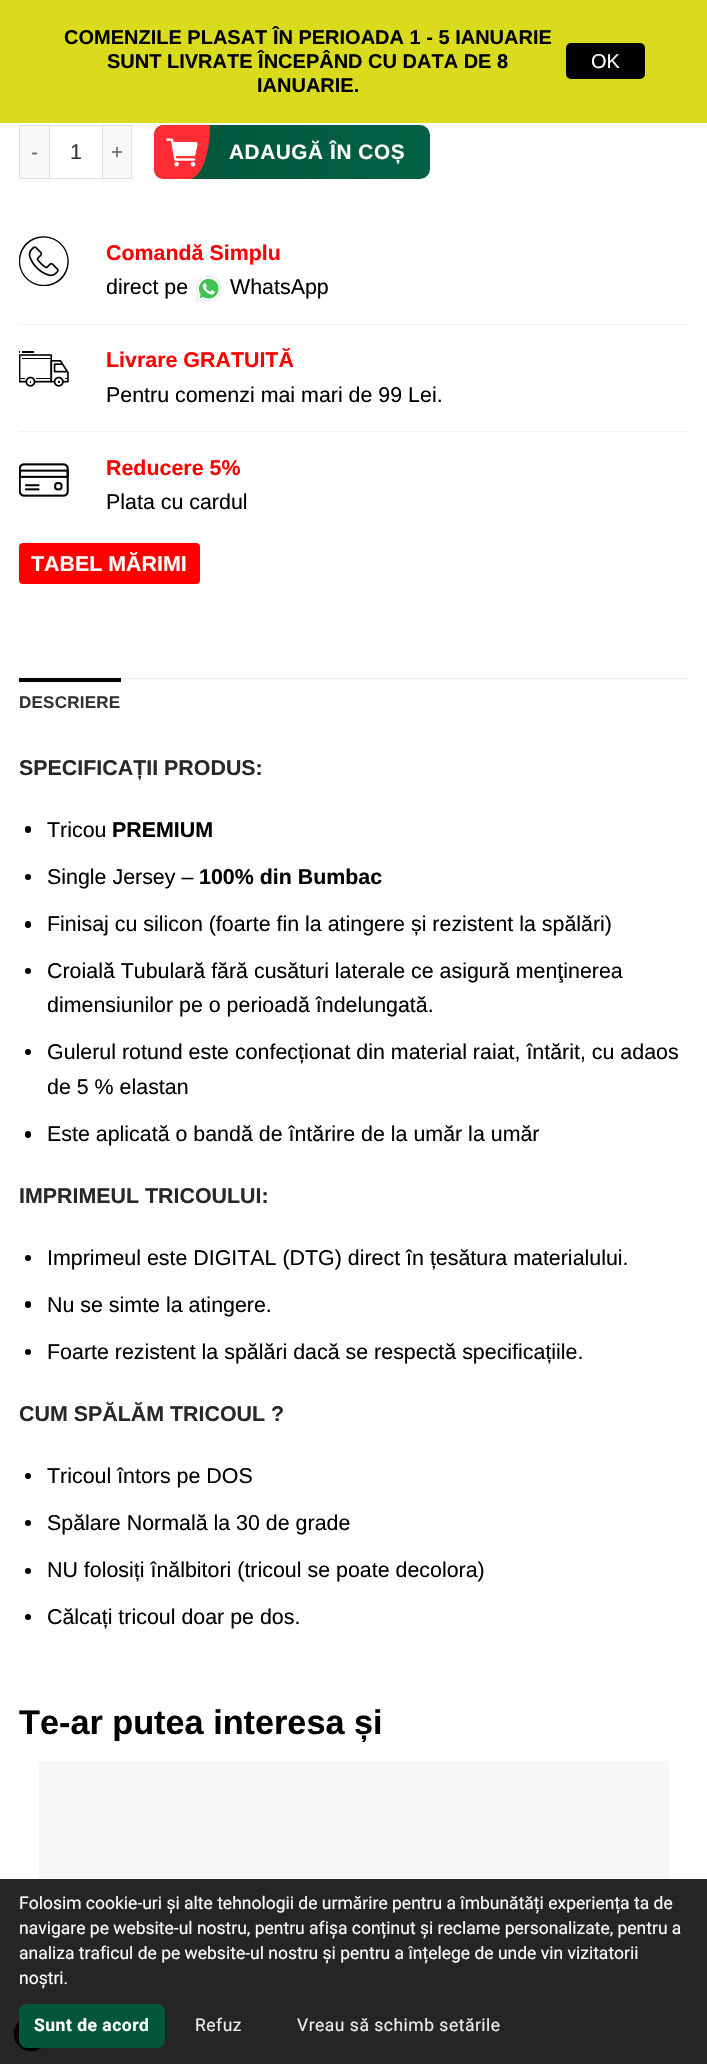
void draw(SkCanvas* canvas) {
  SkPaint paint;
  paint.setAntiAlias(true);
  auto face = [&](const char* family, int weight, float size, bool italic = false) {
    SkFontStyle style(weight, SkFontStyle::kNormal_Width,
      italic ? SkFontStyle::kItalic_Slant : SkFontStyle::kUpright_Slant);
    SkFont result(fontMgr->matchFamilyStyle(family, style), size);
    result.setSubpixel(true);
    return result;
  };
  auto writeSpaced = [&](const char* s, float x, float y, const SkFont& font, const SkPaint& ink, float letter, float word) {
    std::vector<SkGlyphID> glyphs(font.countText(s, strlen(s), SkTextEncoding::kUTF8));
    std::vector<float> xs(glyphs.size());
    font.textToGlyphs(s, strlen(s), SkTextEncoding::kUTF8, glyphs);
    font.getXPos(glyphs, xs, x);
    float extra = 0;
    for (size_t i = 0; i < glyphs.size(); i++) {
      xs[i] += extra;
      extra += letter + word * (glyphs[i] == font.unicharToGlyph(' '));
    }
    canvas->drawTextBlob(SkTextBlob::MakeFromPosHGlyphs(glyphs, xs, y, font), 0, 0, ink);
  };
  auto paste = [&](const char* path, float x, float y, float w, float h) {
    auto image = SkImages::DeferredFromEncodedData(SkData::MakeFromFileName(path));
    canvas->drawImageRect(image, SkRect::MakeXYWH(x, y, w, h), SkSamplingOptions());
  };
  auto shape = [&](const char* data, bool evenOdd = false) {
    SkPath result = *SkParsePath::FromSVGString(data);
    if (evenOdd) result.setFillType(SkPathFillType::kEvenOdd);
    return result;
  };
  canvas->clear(0xffffffff);
  paint.setColor(0xffdbdb1e);
  canvas->drawRect(SkRect::MakeXYWH(0, 0, 707, 123), paint);
  paint.setColor(0xff000000);
  canvas->drawRoundRect(SkRect::MakeXYWH(566, 43, 79, 36), 5, 5, paint);
  {
    const struct { float x, y, w, h; SkColor color; } items[] = {
      {20, 126, 29, 52, 0xfff9f9f9},
      {19, 125, 30, 1, 0xffdddddd},
      {19, 178, 30, 1, 0xffdddddd},
      {19, 125, 1, 54, 0xffdddddd},
    };
    for (auto [x, y, w, h, color] : items) {
      paint.setColor(color);
      canvas->drawRect(SkRect::MakeXYWH(x, y, w, h), paint);
    }
  }
  paint.setStroke(true);
  paint.setStrokeWidth(1);
  canvas->drawRect(SkRect::MakeXYWH(49.5f, 125.5f, 53, 53), paint);
  paint.setStroke(false);
  {
    const struct { float x, y, w, h; SkColor color; } items[] = {
      {103, 126, 30, 52, 0xfff9f9f9},
      {103, 125, 30, 1, 0xffdddddd},
      {131, 125, 1, 54, 0xffdddddd},
      {103, 178, 30, 1, 0xffdddddd},
    };
    for (auto [x, y, w, h, color] : items) {
      paint.setColor(color);
      canvas->drawRect(SkRect::MakeXYWH(x, y, w, h), paint);
    }
  }
  {
    const SkColor colors[] = {0xff02563c, 0xff026144};
    const float stops[] = {0.1f, 1};
    const SkPoint ends[] = {{154, 152}, {430, 152}};
    paint.setShader(SkGradientShader::MakeLinear(ends, colors, stops, 2, SkTileMode::kClamp));
    paint.setAlpha(255);
  }
  canvas->drawRoundRect(SkRect::MakeXYWH(154, 125, 276, 54), 10, 10, paint);
  paint.setShader(nullptr);
  paint.setColor(0xfffe2d34);
  canvas->drawPath(shape("M164 125C158 125 154 129 154 135V169C154 175 158 179 164 179H189C201 179 210 155 210 125Z"), paint);
  paste("img/1.png", 166, 138, 32, 29);
  paste("img/2.png", 19, 236, 50, 50);
  paste("img/3.png", 196, 276, 26, 26);
  paint.setColor(0xfff2f2f2);
  canvas->drawRect(SkRect::MakeXYWH(19, 324, 670, 1), paint);
  paste("img/4.png", 19, 351, 50, 36);
  canvas->drawRect(SkRect::MakeXYWH(19, 431, 670, 1), paint);
  paste("img/5.png", 19, 463, 50, 34);
  paint.setColor(0xffff0000);
  canvas->drawRoundRect(SkRect::MakeXYWH(19, 543, 181, 41), 4, 4, paint);
  paint.setColor(0xffececec);
  canvas->drawRect(SkRect::MakeXYWH(121, 678, 568, 1), paint);
  paint.setColor(0xff000000);
  canvas->drawRect(SkRect::MakeXYWH(19, 678, 102, 4), paint);
  canvas->drawRoundRect(SkRect::MakeXYWH(25, 826, 6, 7), 3, 3, paint);
  canvas->drawCircle(28, 877, 3, paint);
  canvas->drawRoundRect(SkRect::MakeXYWH(25, 921, 6, 7), 3, 3, paint);
  canvas->drawCircle(28, 971, 3, paint);
  canvas->drawCircle(28, 1052, 3, paint);
  canvas->drawRoundRect(SkRect::MakeXYWH(25, 1131, 6, 7), 3, 3, paint);
  canvas->drawCircle(28, 1258, 3, paint);
  canvas->drawRoundRect(SkRect::MakeXYWH(25, 1301, 6, 7), 3, 3, paint);
  canvas->drawCircle(28, 1352, 3, paint);
  canvas->drawCircle(28, 1476, 3, paint);
  canvas->drawCircle(28, 1523, 3, paint);
  canvas->drawCircle(28, 1571, 3, paint);
  canvas->drawCircle(28, 1617, 3, paint);
  paste("img/6.png", 13, 2021, 28, 31);
  paint.setColor(0x08000000);
  canvas->drawRect(SkRect::MakeXYWH(39, 1761, 630, 303), paint);
  paint.setColor(0xd9000000);
  canvas->drawRect(SkRect::MakeXYWH(0, 1879, 707, 185), paint);
  paint.setColor(0xff02563c);
  canvas->drawRoundRect(SkRect::MakeXYWH(19, 2004, 146, 44), 8, 8, paint);
  auto f0 = face("Liberation Sans", 700, 20);
  paint.setColor(0xff000000);
  {
    const struct { const char* s; float x, y; } items[] = {
      {"COMENZILE PLASAT ÎN PERIOADA 1 - 5 IANUARIE", 64, 44},
      {"SUNT LIVRATE ÎNCEPÂND CU DATA DE 8", 107, 68},
      {"IANUARIE.", 257, 92},
    };
    for (auto [s, x, y] : items) {
      canvas->drawString(s, x, y, f0, paint);
    }
  }
  auto f1 = face("Liberation Sans", 400, 20);
  paint.setColor(0xffffffff);
  canvas->drawString("OK", 591, 68, f1, paint);
  auto f2 = face("Liberation Sans", 400, 20.75f);
  paint.setColor(0xff666666);
  writeSpaced("-", 31, 159, f2, paint, 0.6f, 0);
  auto f3 = face("Liberation Sans", 400, 21.4f);
  paint.setColor(0xff333333);
  canvas->drawString("1", 70, 159, f3, paint);
  paint.setColor(0xff666666);
  writeSpaced("+", 111, 159, f2, paint, 0.6f, 0);
  auto f4 = face("Liberation Sans", 700, 20.75f);
  paint.setColor(0xffffffff);
  writeSpaced("ADAUGĂ ÎN COȘ", 229, 159, f4, paint, 0.6f, 0);
  auto f5 = face("Liberation Sans", 700, 21.4f);
  paint.setColor(0xffff0000);
  canvas->drawString("Comandă Simplu", 106, 260, f5, paint);
  paint.setColor(0xff000000);
  canvas->drawString("direct pe", 106, 294, f3, paint);
  canvas->drawString("WhatsApp", 230, 294, f3, paint);
  paint.setColor(0xffff0000);
  canvas->drawString("Livrare GRATUITĂ", 106, 367, f5, paint);
  paint.setColor(0xff000000);
  canvas->drawString("Pentru comenzi mai mari de 99 Lei.", 106, 402, f3, paint);
  paint.setColor(0xffff0000);
  canvas->drawString("Reducere 5%", 106, 475, f5, paint);
  paint.setColor(0xff000000);
  canvas->drawString("Plata cu cardul", 106, 509, f3, paint);
  paint.setColor(0xffffffff);
  canvas->drawString("TABEL MĂRIMI", 31, 571, f5, paint);
  auto f6 = face("Liberation Sans", 700, 17);
  paint.setColor(0xff333333);
  writeSpaced("DESCRIERE", 19, 708, f6, paint, 0.25f, 0);
  paint.setColor(0xff282828);
  canvas->drawString("SPECIFICAȚII PRODUS:", 19, 775, f5, paint);
  paint.setColor(0xff000000);
  canvas->drawString("Tricou", 47, 837, f3, paint);
  canvas->drawString("PREMIUM", 112, 837, f5, paint);
  canvas->drawString("Single Jersey –", 47, 884, f3, paint);
  canvas->drawString("100% din Bumbac", 199, 884, f5, paint);
  {
    const struct { const char* s; float x, y; } items[] = {
      {"Finisaj cu silicon (foarte fin la atingere și rezistent la spălări)", 47, 931},
      {"Croială Tubulară fără cusături laterale ce asigură menţinerea", 47, 978},
      {"dimensiunilor pe o perioadă îndelungată.", 47, 1012},
      {"Gulerul rotund este confecționat din material raiat, întărit, cu adaos", 47, 1059},
      {"de 5 % elastan", 47, 1094},
      {"Este aplicată o bandă de întărire de la umăr la umăr", 47, 1141},
    };
    for (auto [s, x, y] : items) {
      canvas->drawString(s, x, y, f3, paint);
    }
  }
  paint.setColor(0xff282828);
  canvas->drawString("IMPRIMEUL TRICOULUI:", 19, 1203, f5, paint);
  paint.setColor(0xff000000);
  {
    const struct { const char* s; float x, y; } items[] = {
      {"Imprimeul este DIGITAL (DTG) direct în țesătura materialului.", 47, 1265},
      {"Nu se simte la atingere.", 47, 1312},
      {"Foarte rezistent la spălări dacă se respectă specificațiile.", 47, 1359},
    };
    for (auto [s, x, y] : items) {
      canvas->drawString(s, x, y, f3, paint);
    }
  }
  paint.setColor(0xff282828);
  canvas->drawString("CUM SPĂLĂM TRICOUL ?", 19, 1421, f5, paint);
  paint.setColor(0xff000000);
  {
    const struct { const char* s; float x, y; } items[] = {
      {"Tricoul întors pe DOS", 47, 1483},
      {"Spălare Normală la 30 de grade", 47, 1530},
      {"NU folosiți înălbitori (tricoul se poate decolora)", 47, 1577},
      {"Călcați tricoul doar pe dos.", 47, 1624},
    };
    for (auto [s, x, y] : items) {
      canvas->drawString(s, x, y, f3, paint);
    }
  }
  auto f7 = face("Liberation Sans", 700, 34.25f);
  canvas->drawString("Te-ar putea interesa și", 19, 1734, f7, paint);
  auto f8 = face("Roboto", 400, 17.5f);
  paint.setColor(0xffffffff);
  {
    const struct { const char* s; float x, y; } items[] = {
      {"Folosim cookie-uri și alte tehnologii de urmărire pentru a îmbunătăți experiența ta de", 19, 1909},
      {"navigare pe website-ul nostru, pentru afișa conținut și reclame personalizate, pentru a", 19, 1934},
      {"analiza traficul de pe website-ul nostru și pentru a înțelege de unde vin vizitatorii", 19, 1959},
      {"noștri.", 19, 1984},
    };
    for (auto [s, x, y] : items) {
      canvas->drawString(s, x, y, f8, paint);
    }
  }
  auto f9 = face("Roboto", 700, 17.5f);
  writeSpaced("Sunt de acord", 34, 2031, f9, paint, 0.5f, 0);
  paint.setColor(0xffeeeeee);
  writeSpaced("Refuz", 195, 2031, f8, paint, 0.5f, 0);
  writeSpaced("Vreau să schimb setările", 297, 2031, f8, paint, 0.5f, 0);
}
